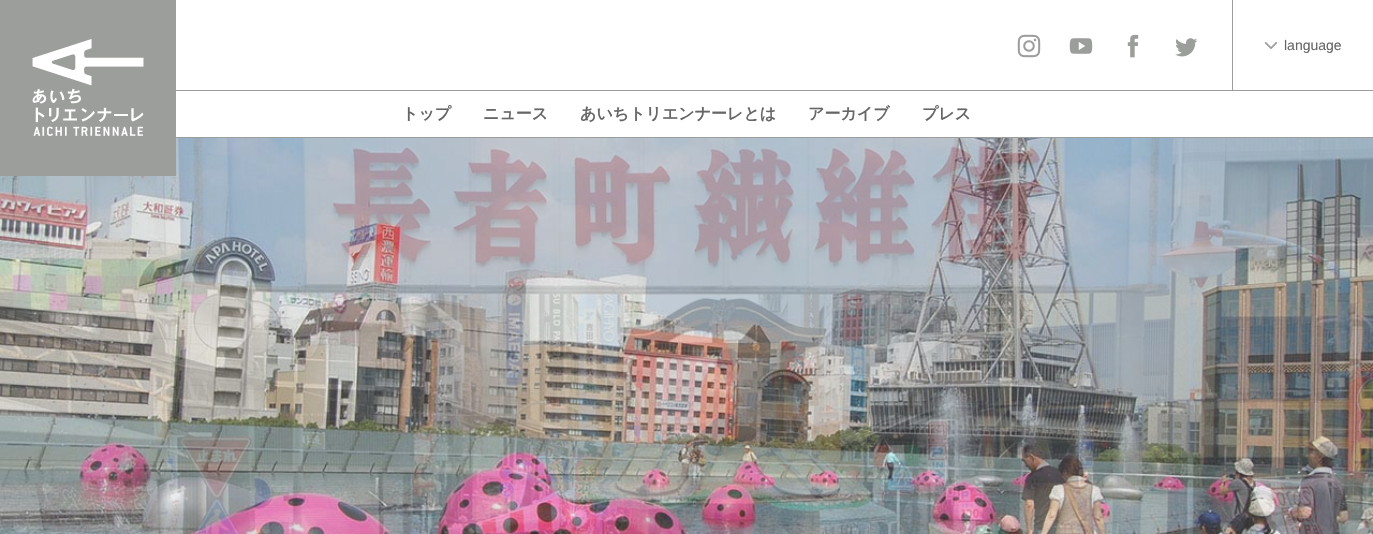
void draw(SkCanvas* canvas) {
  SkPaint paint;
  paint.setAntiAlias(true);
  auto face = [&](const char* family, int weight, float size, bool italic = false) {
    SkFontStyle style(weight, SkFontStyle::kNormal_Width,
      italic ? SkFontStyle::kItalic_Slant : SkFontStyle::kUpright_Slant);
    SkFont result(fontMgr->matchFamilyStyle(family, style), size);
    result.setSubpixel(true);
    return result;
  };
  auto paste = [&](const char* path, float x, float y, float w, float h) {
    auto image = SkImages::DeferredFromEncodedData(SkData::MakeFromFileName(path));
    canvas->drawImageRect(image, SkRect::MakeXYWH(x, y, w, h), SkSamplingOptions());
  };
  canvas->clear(0xffffffff);
  paste("img/7.png", 0, 138, 1373, 396);
  paste("img/8.png", 0, 138, 1373, 396);
  paint.setColor(0xff9c9e9c);
  canvas->drawRect(SkRect::MakeXYWH(0, 0, 176, 176), paint);
  paste("img/1.png", 32, 39, 112, 97);
  canvas->drawRect(SkRect::MakeXYWH(176, 90, 1197, 1), paint);
  paste("img/2.png", 1017, 34, 24, 24);
  paste("img/3.png", 1069, 38, 24, 16);
  paste("img/4.png", 1127, 34, 12, 24);
  paste("img/5.png", 1175, 38, 23, 19);
  canvas->drawRect(SkRect::MakeXYWH(1232, 0, 1, 91), paint);
  paste("img/6.png", 1264, 42, 14, 7);
  canvas->drawRect(SkRect::MakeXYWH(176, 137, 1197, 1), paint);
  auto f0 = face("Liberation Sans", 400, 14);
  paint.setColor(0xff666666);
  canvas->drawString("language", 1284, 50, f0, paint);
  auto f1 = face("WenQuanYi Zen Hei", 700, 16);
  {
    const struct { const char* s; float x, y; } items[] = {
      {"トップ", 402, 119},
      {"ニュース", 483, 119},
      {"あいちトリエンナーレとは", 580, 119},
      {"アーカイブ", 808, 119},
      {"プレス", 922, 119},
    };
    for (auto [s, x, y] : items) {
      canvas->drawString(s, x, y, f1, paint);
    }
  }
}
